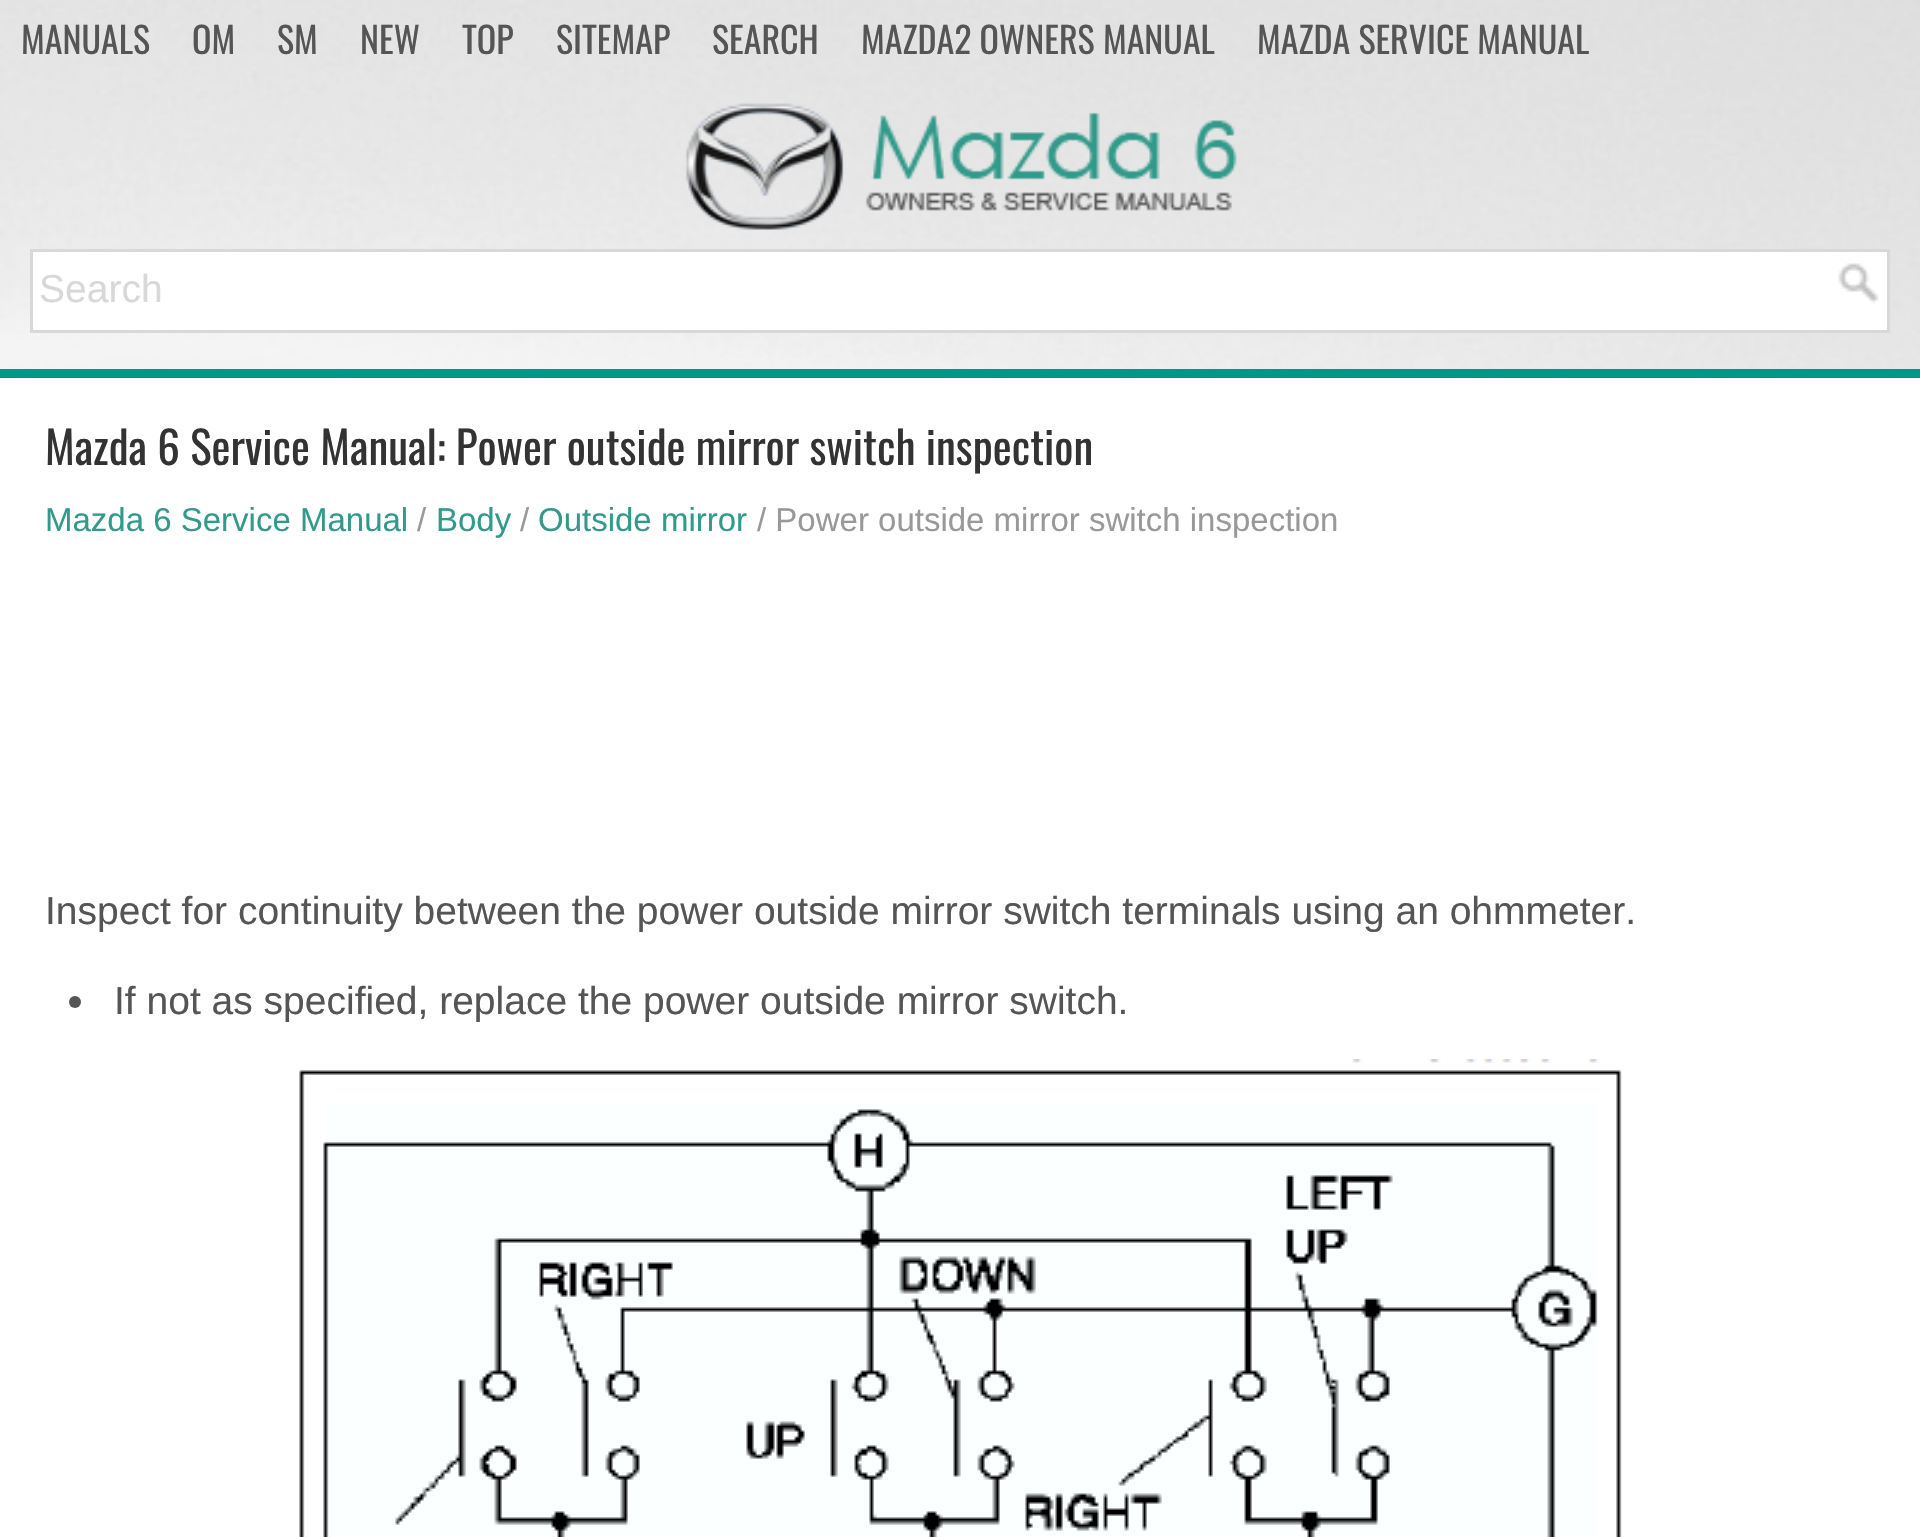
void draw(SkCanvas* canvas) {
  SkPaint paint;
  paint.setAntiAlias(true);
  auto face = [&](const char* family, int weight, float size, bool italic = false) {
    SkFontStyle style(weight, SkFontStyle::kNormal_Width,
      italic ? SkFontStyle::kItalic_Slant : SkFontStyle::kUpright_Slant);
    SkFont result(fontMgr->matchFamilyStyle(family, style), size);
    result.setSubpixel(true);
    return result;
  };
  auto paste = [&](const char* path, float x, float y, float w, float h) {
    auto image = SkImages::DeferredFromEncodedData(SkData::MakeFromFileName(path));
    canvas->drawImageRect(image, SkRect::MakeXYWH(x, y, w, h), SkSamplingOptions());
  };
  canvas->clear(0xffffffff);
  paste("img/1.png", 0, 0, 1920, 369);
  paste("img/2.png", 685, 103, 552, 127);
  paint.setColor(0xffffffff);
  canvas->drawRect(SkRect::MakeXYWH(31.5f, 250.5f, 1857, 81), paint);
  paint.setStroke(true);
  paint.setStrokeWidth(3);
  paint.setColor(0xffd8d8d8);
  canvas->drawRect(SkRect::MakeXYWH(31.5f, 250.5f, 1857, 81), paint);
  paste("img/3.png", 1838, 263, 41, 41);
  paint.setStroke(false);
  paint.setColor(0xff009787);
  canvas->drawRect(SkRect::MakeXYWH(0, 369, 1920, 9), paint);
  paint.setColor(0xff555555);
  canvas->drawCircle(75, 1002, 6, paint);
  paste("img/4.png", 299, 1059, 1323, 478);
  auto f0 = face("Oswald", 400, 36);
  {
    const struct { const char* s; float x, y; } items[] = {
      {"MANUALS", 21, 54},
      {"OM", 192, 54},
      {"SM", 277, 54},
      {"NEW", 360, 54},
      {"TOP", 462, 54},
      {"SITEMAP", 556, 54},
      {"SEARCH", 712, 54},
      {"MAZDA2 OWNERS MANUAL", 861, 54},
      {"MAZDA SERVICE MANUAL", 1257, 54},
    };
    for (auto [s, x, y] : items) {
      canvas->drawString(s, x, y, f0, paint);
    }
  }
  auto f1 = face("Liberation Sans", 400, 39);
  paint.setColor(0xffd8d8d8);
  canvas->drawString("Search", 39, 302, f1, paint);
  auto f2 = face("Oswald", 400, 45);
  paint.setColor(0xff333333);
  canvas->drawString("Mazda 6 Service Manual: Power outside mirror switch inspection", 45, 465, f2, paint);
  auto f3 = face("Liberation Sans", 400, 33);
  paint.setColor(0xff329a8a);
  canvas->drawString("Mazda 6 Service Manual", 45, 531, f3, paint);
  paint.setColor(0xff999999);
  canvas->drawString("/", 417, 531, f3, paint);
  paint.setColor(0xff329a8a);
  canvas->drawString("Body", 436, 531, f3, paint);
  paint.setColor(0xff999999);
  canvas->drawString("/", 520, 531, f3, paint);
  paint.setColor(0xff329a8a);
  canvas->drawString("Outside mirror", 538, 531, f3, paint);
  paint.setColor(0xff999999);
  canvas->drawString("/ Power outside mirror switch inspection", 757, 531, f3, paint);
  paint.setColor(0xff555555);
  canvas->drawString("Inspect for continuity between the power outside mirror switch terminals using an ohmmeter.", 45, 924, f1, paint);
  canvas->drawString("If not as specified, replace the power outside mirror switch.", 114, 1014, f1, paint);
}
